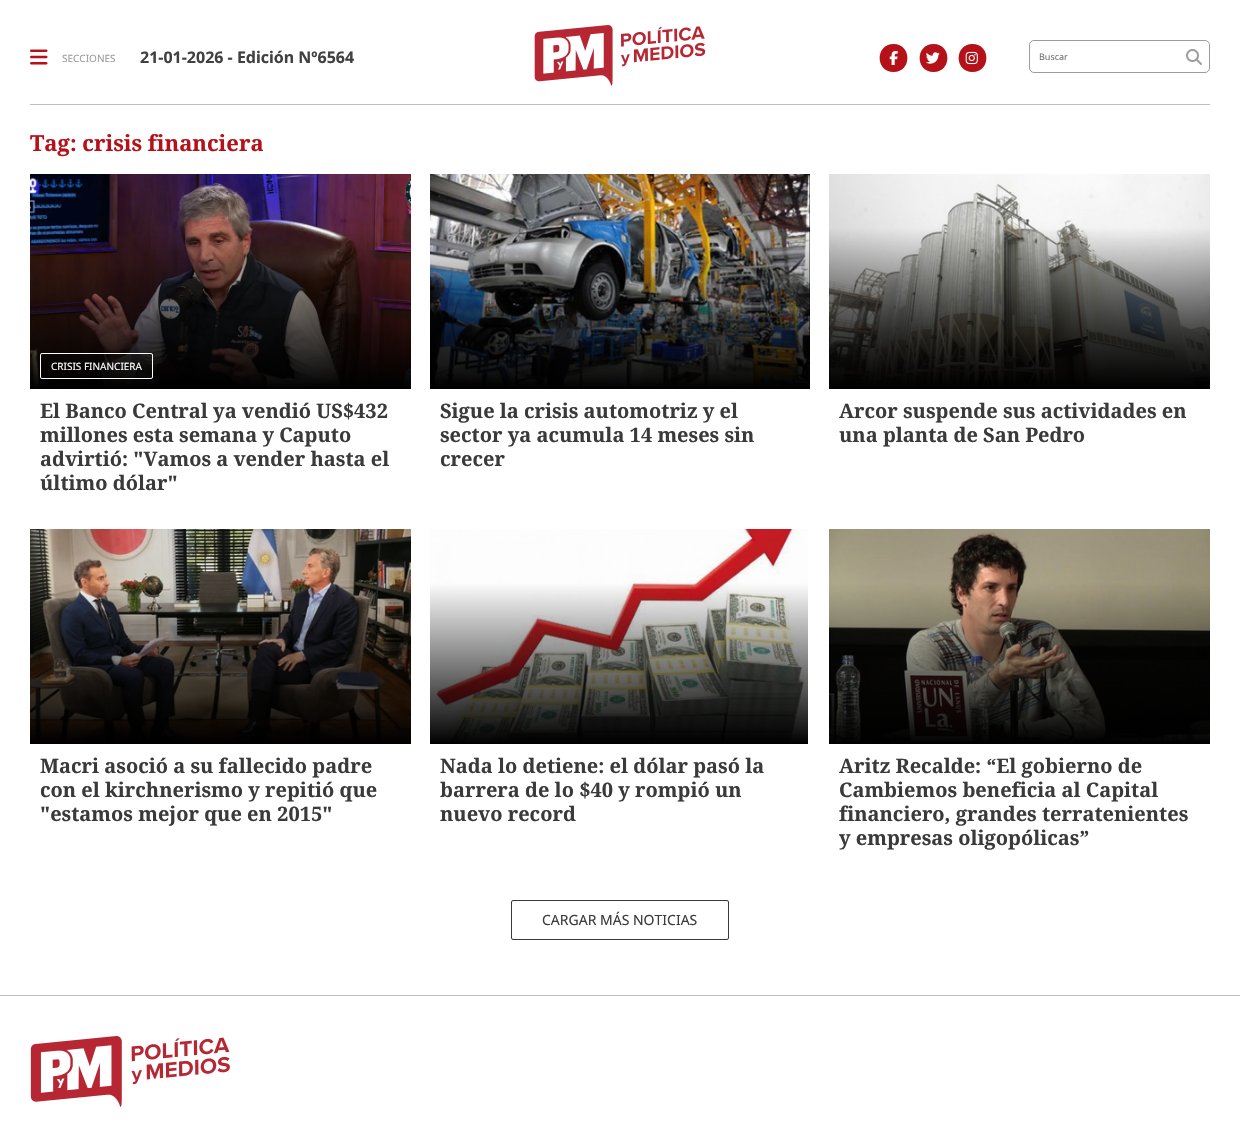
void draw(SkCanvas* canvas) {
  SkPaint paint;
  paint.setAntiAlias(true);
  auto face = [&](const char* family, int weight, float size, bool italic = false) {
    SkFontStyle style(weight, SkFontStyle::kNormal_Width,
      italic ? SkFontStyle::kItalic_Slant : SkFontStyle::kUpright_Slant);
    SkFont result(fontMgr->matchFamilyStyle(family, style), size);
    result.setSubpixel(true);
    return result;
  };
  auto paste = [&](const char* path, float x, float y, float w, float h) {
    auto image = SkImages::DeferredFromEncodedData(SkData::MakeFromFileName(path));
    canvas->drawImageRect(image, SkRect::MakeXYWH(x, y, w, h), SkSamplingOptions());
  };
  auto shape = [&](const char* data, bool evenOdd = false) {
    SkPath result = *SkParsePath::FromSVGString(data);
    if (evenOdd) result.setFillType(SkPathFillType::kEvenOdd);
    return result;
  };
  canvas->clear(0xffffffff);
  paste("img/1.png", 30, 49, 18, 16);
  paste("img/2.png", 534, 25, 172, 61);
  paint.setColor(0xffb51118);
  canvas->drawPath(shape("M893.5 72C912 72 912 44 893.5 44C875 44 875 72 893.5 72Z"), paint);
  paste("img/3.png", 889, 51, 9, 14);
  canvas->drawPath(shape("M933.5 72C952 72 952 44 933.5 44C915 44 915 72 933.5 72Z"), paint);
  paste("img/4.png", 926, 52, 14, 12);
  canvas->drawPath(shape("M972.5 72C991 72 991 44 972.5 44C954 44 954 72 972.5 72Z"), paint);
  paste("img/5.png", 965, 51, 13, 14);
  paint.setStroke(true);
  paint.setStrokeWidth(1);
  paint.setColor(0xff9b9c9e);
  canvas->drawRoundRect(SkRect::MakeXYWH(1029.5f, 40.5f, 180, 32), 4.5f, 4.5f, paint);
  paste("img/6.png", 1186, 49, 16, 16);
  paint.setStroke(false);
  paint.setColor(0xffbbbdbf);
  canvas->drawRect(SkRect::MakeXYWH(30, 104, 1180, 1), paint);
  paste("img/7.png", 30, 174, 381, 215);
  paint.setStroke(true);
  paint.setColor(0xffffffff);
  canvas->drawRoundRect(SkRect::MakeXYWH(40.5f, 353.5f, 112, 25), 1.5f, 1.5f, paint);
  paste("img/8.png", 430, 174, 380, 215);
  paste("img/9.png", 829, 174, 381, 215);
  paste("img/10.png", 30, 529, 381, 215);
  paste("img/11.png", 430, 529, 378, 215);
  paste("img/12.png", 829, 529, 381, 215);
  paint.setColor(0xff3a3a3a);
  canvas->drawRoundRect(SkRect::MakeXYWH(511.5f, 900.5f, 217, 39), 1.5f, 1.5f, paint);
  paint.setStroke(false);
  paint.setColor(0xffbbbdbf);
  canvas->drawRect(SkRect::MakeXYWH(0, 995, 1240, 1), paint);
  paste("img/13.png", 30, 1036, 200, 71);
  auto f0 = face("Noto Sans", 400, 10);
  paint.setColor(0xff9b9c9e);
  canvas->drawString("SECCIONES", 62, 62, f0, paint);
  auto f1 = face("Noto Sans", 700, 16);
  paint.setColor(0xff404041);
  canvas->drawString("21-01-2026 - Edición Nº6564", 140, 63, f1, paint);
  auto f2 = face("Noto Sans", 400, 9);
  paint.setColor(0xff757575);
  canvas->drawString("Buscar", 1039, 60, f2, paint);
  auto f3 = face("Noto Serif", 700, 22);
  paint.setColor(0xffb51118);
  canvas->drawString("Tag: crisis financiera", 30, 151, f3, paint);
  paint.setColor(0xffffffff);
  canvas->drawString("CRISIS FINANCIERA", 51, 370, f0, paint);
  auto f4 = face("Noto Serif", 700, 20);
  paint.setColor(0xff3a3a3a);
  {
    const struct { const char* s; float x, y; } items[] = {
      {"El Banco Central ya vendió US$432", 40, 418},
      {"millones esta semana y Caputo", 40, 442},
      {"advirtió: \"Vamos a vender hasta el", 40, 466},
      {"último dólar\"", 40, 490},
      {"Sigue la crisis automotriz y el", 440, 418},
      {"sector ya acumula 14 meses sin", 440, 442},
      {"crecer", 440, 466},
      {"Arcor suspende sus actividades en", 839, 418},
      {"una planta de San Pedro", 839, 442},
      {"Macri asoció a su fallecido padre", 40, 773},
      {"con el kirchnerismo y repitió que", 40, 797},
      {"\"estamos mejor que en 2015\"", 40, 821},
      {"Nada lo detiene: el dólar pasó la", 440, 773},
      {"barrera de lo $40 y rompió un", 440, 797},
      {"nuevo record", 440, 821},
      {"Aritz Recalde: “El gobierno de", 839, 773},
      {"Cambiemos beneficia al Capital", 839, 797},
      {"financiero, grandes terratenientes", 839, 821},
      {"y empresas oligopólicas”", 839, 845},
    };
    for (auto [s, x, y] : items) {
      canvas->drawString(s, x, y, f4, paint);
    }
  }
  auto f5 = face("Noto Sans", 400, 14);
  canvas->drawString("CARGAR MÁS NOTICIAS", 542, 925, f5, paint);
}
